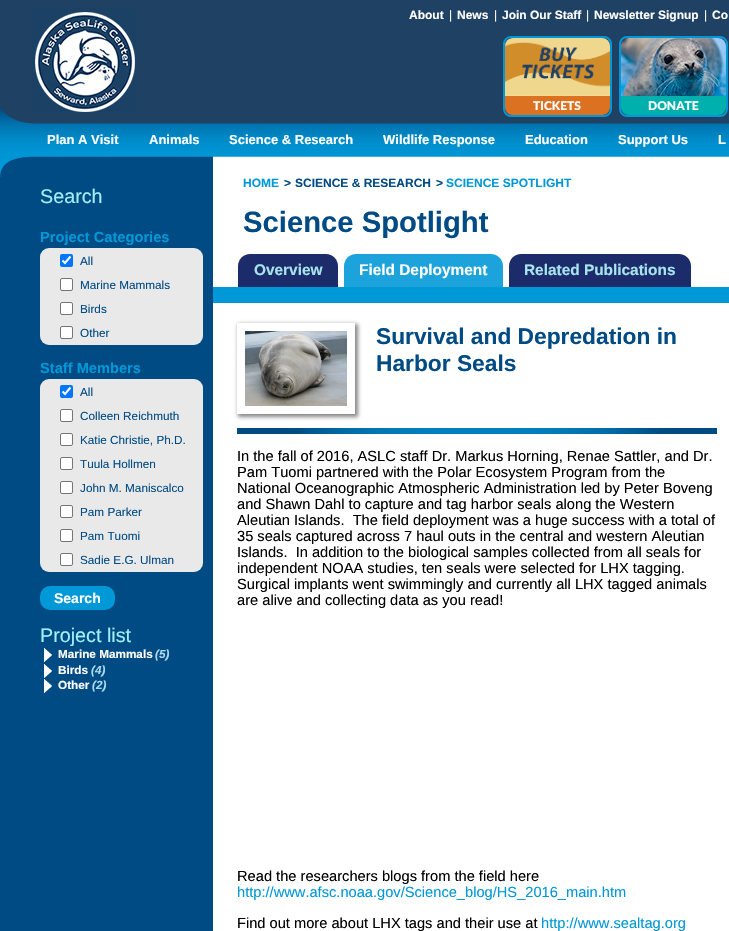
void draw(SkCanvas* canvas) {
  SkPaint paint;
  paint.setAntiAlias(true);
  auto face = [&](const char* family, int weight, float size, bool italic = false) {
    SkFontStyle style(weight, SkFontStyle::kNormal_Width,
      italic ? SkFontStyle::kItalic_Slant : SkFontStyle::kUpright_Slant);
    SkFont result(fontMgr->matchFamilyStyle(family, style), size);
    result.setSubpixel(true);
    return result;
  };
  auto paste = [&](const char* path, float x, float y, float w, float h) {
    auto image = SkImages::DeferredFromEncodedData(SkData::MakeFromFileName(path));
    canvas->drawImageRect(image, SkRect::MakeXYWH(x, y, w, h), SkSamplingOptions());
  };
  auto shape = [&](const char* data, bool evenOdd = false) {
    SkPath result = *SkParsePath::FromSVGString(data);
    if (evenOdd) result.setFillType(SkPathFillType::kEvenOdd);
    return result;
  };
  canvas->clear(0xff1e4164);
  paste("img/1.png", 32, 8, 104, 104);
  paint.setStroke(true);
  paint.setStrokeWidth(2);
  paint.setColor(0xff0098d7);
  canvas->drawRoundRect(SkRect::MakeXYWH(504, 37, 107, 79), 7, 7, paint);
  paste("img/2.png", 505, 38, 105, 58);
  paint.setStroke(false);
  paint.setColor(0xffdc7122);
  canvas->drawPath(shape("M505 96H610V107C610 111.5 606.5 115 602 115H513C508.5 115 505 111.5 505 107Z"), paint);
  paint.setStroke(true);
  paint.setColor(0xff0098d7);
  canvas->drawRoundRect(SkRect::MakeXYWH(620, 37, 107, 79), 7, 7, paint);
  paste("img/3.png", 621, 38, 105, 58);
  paint.setStroke(false);
  paint.setColor(0xff00b0ac);
  canvas->drawPath(shape("M621 96H726V107C726 111.5 722.5 115 718 115H629C624.5 115 621 111.5 621 107Z"), paint);
  paint.setColor(0xffffffff);
  canvas->drawRect(SkRect::MakeXYWH(213, 156, 516, 775), paint);
  paint.setColor(0xff004b84);
  canvas->drawRect(SkRect::MakeXYWH(0, 156, 213, 775), paint);
  paint.setColor(0xffe9e9e9);
  canvas->drawRoundRect(SkRect::MakeXYWH(40, 248, 163, 97), 9, 9, paint);
  paint.setColor(0xff0075ff);
  canvas->drawRoundRect(SkRect::MakeXYWH(60, 254, 13, 13), 2, 2, paint);
  paint.setStroke(true);
  paint.setStrokeWidth(2.1f);
  paint.setColor(0xffffffff);
  canvas->drawPath(shape("M62.5 260.5L65 263L70.5 256.5"), paint);
  paint.setStroke(false);
  canvas->drawRoundRect(SkRect::MakeXYWH(60.5f, 278.5f, 12, 12), 1.5f, 1.5f, paint);
  paint.setStroke(true);
  paint.setStrokeWidth(1);
  paint.setColor(0xff767676);
  canvas->drawRoundRect(SkRect::MakeXYWH(60.5f, 278.5f, 12, 12), 1.5f, 1.5f, paint);
  paint.setStroke(false);
  paint.setColor(0xffffffff);
  canvas->drawRoundRect(SkRect::MakeXYWH(60.5f, 302.5f, 12, 12), 1.5f, 1.5f, paint);
  paint.setStroke(true);
  paint.setColor(0xff767676);
  canvas->drawRoundRect(SkRect::MakeXYWH(60.5f, 302.5f, 12, 12), 1.5f, 1.5f, paint);
  paint.setStroke(false);
  paint.setColor(0xffffffff);
  canvas->drawRoundRect(SkRect::MakeXYWH(60.5f, 326.5f, 12, 12), 1.5f, 1.5f, paint);
  paint.setStroke(true);
  paint.setColor(0xff767676);
  canvas->drawRoundRect(SkRect::MakeXYWH(60.5f, 326.5f, 12, 12), 1.5f, 1.5f, paint);
  paint.setStroke(false);
  paint.setColor(0xffe9e9e9);
  canvas->drawRoundRect(SkRect::MakeXYWH(40, 379, 163, 193), 9, 9, paint);
  paint.setColor(0xff0075ff);
  canvas->drawRoundRect(SkRect::MakeXYWH(60, 385, 13, 13), 2, 2, paint);
  paint.setStroke(true);
  paint.setStrokeWidth(2.1f);
  paint.setColor(0xffffffff);
  canvas->drawPath(shape("M62.5 391.5L65 394L70.5 387.5"), paint);
  paint.setStroke(false);
  canvas->drawRoundRect(SkRect::MakeXYWH(60.5f, 409.5f, 12, 12), 1.5f, 1.5f, paint);
  paint.setStroke(true);
  paint.setStrokeWidth(1);
  paint.setColor(0xff767676);
  canvas->drawRoundRect(SkRect::MakeXYWH(60.5f, 409.5f, 12, 12), 1.5f, 1.5f, paint);
  paint.setStroke(false);
  paint.setColor(0xffffffff);
  canvas->drawRoundRect(SkRect::MakeXYWH(60.5f, 433.5f, 12, 12), 1.5f, 1.5f, paint);
  paint.setStroke(true);
  paint.setColor(0xff767676);
  canvas->drawRoundRect(SkRect::MakeXYWH(60.5f, 433.5f, 12, 12), 1.5f, 1.5f, paint);
  paint.setStroke(false);
  paint.setColor(0xffffffff);
  canvas->drawRoundRect(SkRect::MakeXYWH(60.5f, 457.5f, 12, 12), 1.5f, 1.5f, paint);
  paint.setStroke(true);
  paint.setColor(0xff767676);
  canvas->drawRoundRect(SkRect::MakeXYWH(60.5f, 457.5f, 12, 12), 1.5f, 1.5f, paint);
  paint.setStroke(false);
  paint.setColor(0xffffffff);
  canvas->drawRoundRect(SkRect::MakeXYWH(60.5f, 481.5f, 12, 12), 1.5f, 1.5f, paint);
  paint.setStroke(true);
  paint.setColor(0xff767676);
  canvas->drawRoundRect(SkRect::MakeXYWH(60.5f, 481.5f, 12, 12), 1.5f, 1.5f, paint);
  paint.setStroke(false);
  paint.setColor(0xffffffff);
  canvas->drawRoundRect(SkRect::MakeXYWH(60.5f, 505.5f, 12, 12), 1.5f, 1.5f, paint);
  paint.setStroke(true);
  paint.setColor(0xff767676);
  canvas->drawRoundRect(SkRect::MakeXYWH(60.5f, 505.5f, 12, 12), 1.5f, 1.5f, paint);
  paint.setStroke(false);
  paint.setColor(0xffffffff);
  canvas->drawRoundRect(SkRect::MakeXYWH(60.5f, 529.5f, 12, 12), 1.5f, 1.5f, paint);
  paint.setStroke(true);
  paint.setColor(0xff767676);
  canvas->drawRoundRect(SkRect::MakeXYWH(60.5f, 529.5f, 12, 12), 1.5f, 1.5f, paint);
  paint.setStroke(false);
  paint.setColor(0xffffffff);
  canvas->drawRoundRect(SkRect::MakeXYWH(60.5f, 553.5f, 12, 12), 1.5f, 1.5f, paint);
  paint.setStroke(true);
  paint.setColor(0xff767676);
  canvas->drawRoundRect(SkRect::MakeXYWH(60.5f, 553.5f, 12, 12), 1.5f, 1.5f, paint);
  paint.setStroke(false);
  paint.setColor(0xff0098d7);
  canvas->drawRoundRect(SkRect::MakeXYWH(40, 586, 75, 24), 10, 10, paint);
  paste("img/5.png", 44, 648, 8, 14);
  paste("img/5.png", 44, 664, 8, 14);
  paste("img/5.png", 44, 679, 8, 14);
  paint.setColor(0xff1c2b69);
  canvas->drawPath(shape("M250 254H326C332.5 254 338 259.5 338 266V287H238V266C238 259.5 243.5 254 250 254Z"), paint);
  paint.setColor(0xff1ca3db);
  canvas->drawPath(shape("M356 254H491C497.5 254 503 259.5 503 266V287H344V266C344 259.5 349.5 254 356 254Z"), paint);
  paint.setColor(0xff1c2b69);
  canvas->drawPath(shape("M521 254H679C685.5 254 691 259.5 691 266V287H509V266C509 259.5 514.5 254 521 254Z"), paint);
  paint.setColor(0xff0098d7);
  canvas->drawRect(SkRect::MakeXYWH(213, 287, 516, 16), paint);
  paste("img/6.png", 237, 428, 480, 6);
  canvas->save();
  canvas->clipPath(shape("M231 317H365V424H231ZM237 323H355V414H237Z", true), true);
  paint.setColor(0xbf5e5e5e);
  paint.setMaskFilter(SkMaskFilter::MakeBlur(kNormal_SkBlurStyle, 2));
  canvas->drawRect(SkRect::MakeXYWH(238, 324, 120, 93), paint);
  paint.setMaskFilter(nullptr);
  canvas->restore();
  paste("img/7.png", 245, 331, 102, 75);
  auto f0 = face("Liberation Sans", 700, 12);
  paint.setColor(0xffffffff);
  canvas->drawString("About", 409, 19, f0, paint);
  auto f1 = face("Liberation Sans", 400, 12);
  canvas->drawString("|", 449, 19, f1, paint);
  canvas->drawString("News", 457, 19, f0, paint);
  canvas->drawString("|", 494, 19, f1, paint);
  canvas->drawString("Join Our Staff", 502, 19, f0, paint);
  canvas->drawString("|", 586, 19, f1, paint);
  canvas->drawString("Newsletter Signup", 594, 19, f0, paint);
  canvas->drawString("|", 704, 19, f1, paint);
  canvas->drawString("Co", 712, 19, f0, paint);
  auto f2 = face("Lato", 900, 12);
  canvas->drawString("TICKETS", 533, 110, f2, paint);
  canvas->drawString("DONATE", 648, 110, f2, paint);
  paste("img/4.png", 0, 107, 729, 70);
  auto f3 = face("Liberation Sans", 700, 13);
  {
    const struct { const char* s; float x, y; } items[] = {
      {"Plan A Visit", 47, 144},
      {"Animals", 149, 144},
      {"Science & Research", 229, 144},
      {"Wildlife Response", 383, 144},
      {"Education", 525, 144},
      {"Support Us", 618, 144},
      {"L", 718, 144},
    };
    for (auto [s, x, y] : items) {
      canvas->drawString(s, x, y, f3, paint);
    }
  }
  paint.setColor(0xff0098d7);
  canvas->drawString("HOME", 243, 187, f0, paint);
  paint.setColor(0xff004b84);
  {
    const struct { const char* s; float x, y; } items[] = {
      {">", 284, 187},
      {"SCIENCE & RESEARCH", 295, 187},
      {">", 436, 187},
    };
    for (auto [s, x, y] : items) {
      canvas->drawString(s, x, y, f0, paint);
    }
  }
  paint.setColor(0xff0098d7);
  canvas->drawString("SCIENCE SPOTLIGHT", 446, 187, f0, paint);
  auto f4 = face("Liberation Sans", 400, 19.75f);
  paint.setColor(0xffa1eef8);
  canvas->drawString("Search", 40, 203, f4, paint);
  auto f5 = face("Liberation Sans", 700, 14.65f);
  paint.setColor(0xff0098d7);
  canvas->drawString("Project Categories", 40, 242, f5, paint);
  auto f6 = face("Liberation Sans", 400, 11.75f);
  paint.setColor(0xff004b84);
  {
    const struct { const char* s; float x, y; } items[] = {
      {"All", 80, 265},
      {"Marine Mammals", 80, 289},
      {"Birds", 80, 313},
      {"Other", 80, 337},
    };
    for (auto [s, x, y] : items) {
      canvas->drawString(s, x, y, f6, paint);
    }
  }
  paint.setColor(0xff0098d7);
  canvas->drawString("Staff Members", 40, 373, f5, paint);
  paint.setColor(0xff004b84);
  {
    const struct { const char* s; float x, y; } items[] = {
      {"All", 80, 396},
      {"Colleen Reichmuth", 80, 420},
      {"Katie Christie, Ph.D.", 80, 444},
      {"Tuula Hollmen", 80, 468},
      {"John M. Maniscalco", 80, 492},
      {"Pam Parker", 80, 516},
      {"Pam Tuomi", 80, 540},
      {"Sadie E.G. Ulman", 80, 564},
    };
    for (auto [s, x, y] : items) {
      canvas->drawString(s, x, y, f6, paint);
    }
  }
  auto f7 = face("Liberation Sans", 700, 14);
  paint.setColor(0xffffffff);
  canvas->drawString("Search", 54, 603, f7, paint);
  paint.setColor(0xffa1eef8);
  canvas->drawString("Project list", 40, 642, f4, paint);
  auto f8 = face("Liberation Sans", 700, 11.75f);
  paint.setColor(0xffffffff);
  canvas->drawString("Marine Mammals", 58, 658, f8, paint);
  auto f9 = face("Liberation Sans", 700, 11.75f, true);
  paint.setColor(0xffabd9ef);
  canvas->drawString("(5)", 155, 658, f9, paint);
  paint.setColor(0xffffffff);
  canvas->drawString("Birds", 58, 674, f8, paint);
  paint.setColor(0xffabd9ef);
  canvas->drawString("(4)", 91, 674, f9, paint);
  paint.setColor(0xffffffff);
  canvas->drawString("Other", 58, 689, f8, paint);
  paint.setColor(0xffabd9ef);
  canvas->drawString("(2)", 92, 689, f9, paint);
  auto f10 = face("Liberation Sans", 700, 29.25f);
  paint.setColor(0xff004b84);
  canvas->drawString("Science Spotlight", 243, 232, f10, paint);
  auto f11 = face("Liberation Sans", 700, 15.4f);
  paint.setColor(0xffa8e4ee);
  canvas->drawString("Overview", 254, 275, f11, paint);
  paint.setColor(0xffffffff);
  canvas->drawString("Field Deployment", 359, 275, f11, paint);
  paint.setColor(0xffa8e4ee);
  canvas->drawString("Related Publications", 524, 275, f11, paint);
  auto f12 = face("Liberation Sans", 700, 22.75f);
  paint.setColor(0xff004b84);
  canvas->drawString("Survival and Depredation in", 376, 344, f12, paint);
  canvas->drawString("Harbor Seals", 376, 371, f12, paint);
  auto f13 = face("Liberation Sans", 400, 14.65f);
  paint.setColor(0xff000000);
  {
    const struct { const char* s; float x, y; } items[] = {
      {"In the fall of 2016, ASLC staff Dr. Markus Horning, Renae Sattler, and Dr.", 237, 461},
      {"Pam Tuomi partnered with the Polar Ecosystem Program from the", 237, 477},
      {"National Oceanographic Atmospheric Administration led by Peter Boveng", 237, 493},
      {"and Shawn Dahl to capture and tag harbor seals along the Western", 237, 509},
      {"Aleutian Islands.  The field deployment was a huge success with a total of", 237, 525},
      {"35 seals captured across 7 haul outs in the central and western Aleutian", 237, 541},
      {"Islands.  In addition to the biological samples collected from all seals for", 237, 557},
      {"independent NOAA studies, ten seals were selected for LHX tagging.", 237, 573},
      {"Surgical implants went swimmingly and currently all LHX tagged animals", 237, 589},
      {"are alive and collecting data as you read!", 237, 605},
      {"Read the researchers blogs from the field here", 237, 881},
    };
    for (auto [s, x, y] : items) {
      canvas->drawString(s, x, y, f13, paint);
    }
  }
  paint.setColor(0xff0098d7);
  canvas->drawString("http://www.afsc.noaa.gov/Science_blog/HS_2016_main.htm", 237, 897, f13, paint);
  paint.setColor(0xff000000);
  canvas->drawString("Find out more about LHX tags and their use at", 237, 928, f13, paint);
  paint.setColor(0xff0098d7);
  canvas->drawString("http://www.sealtag.org", 541, 928, f13, paint);
}
